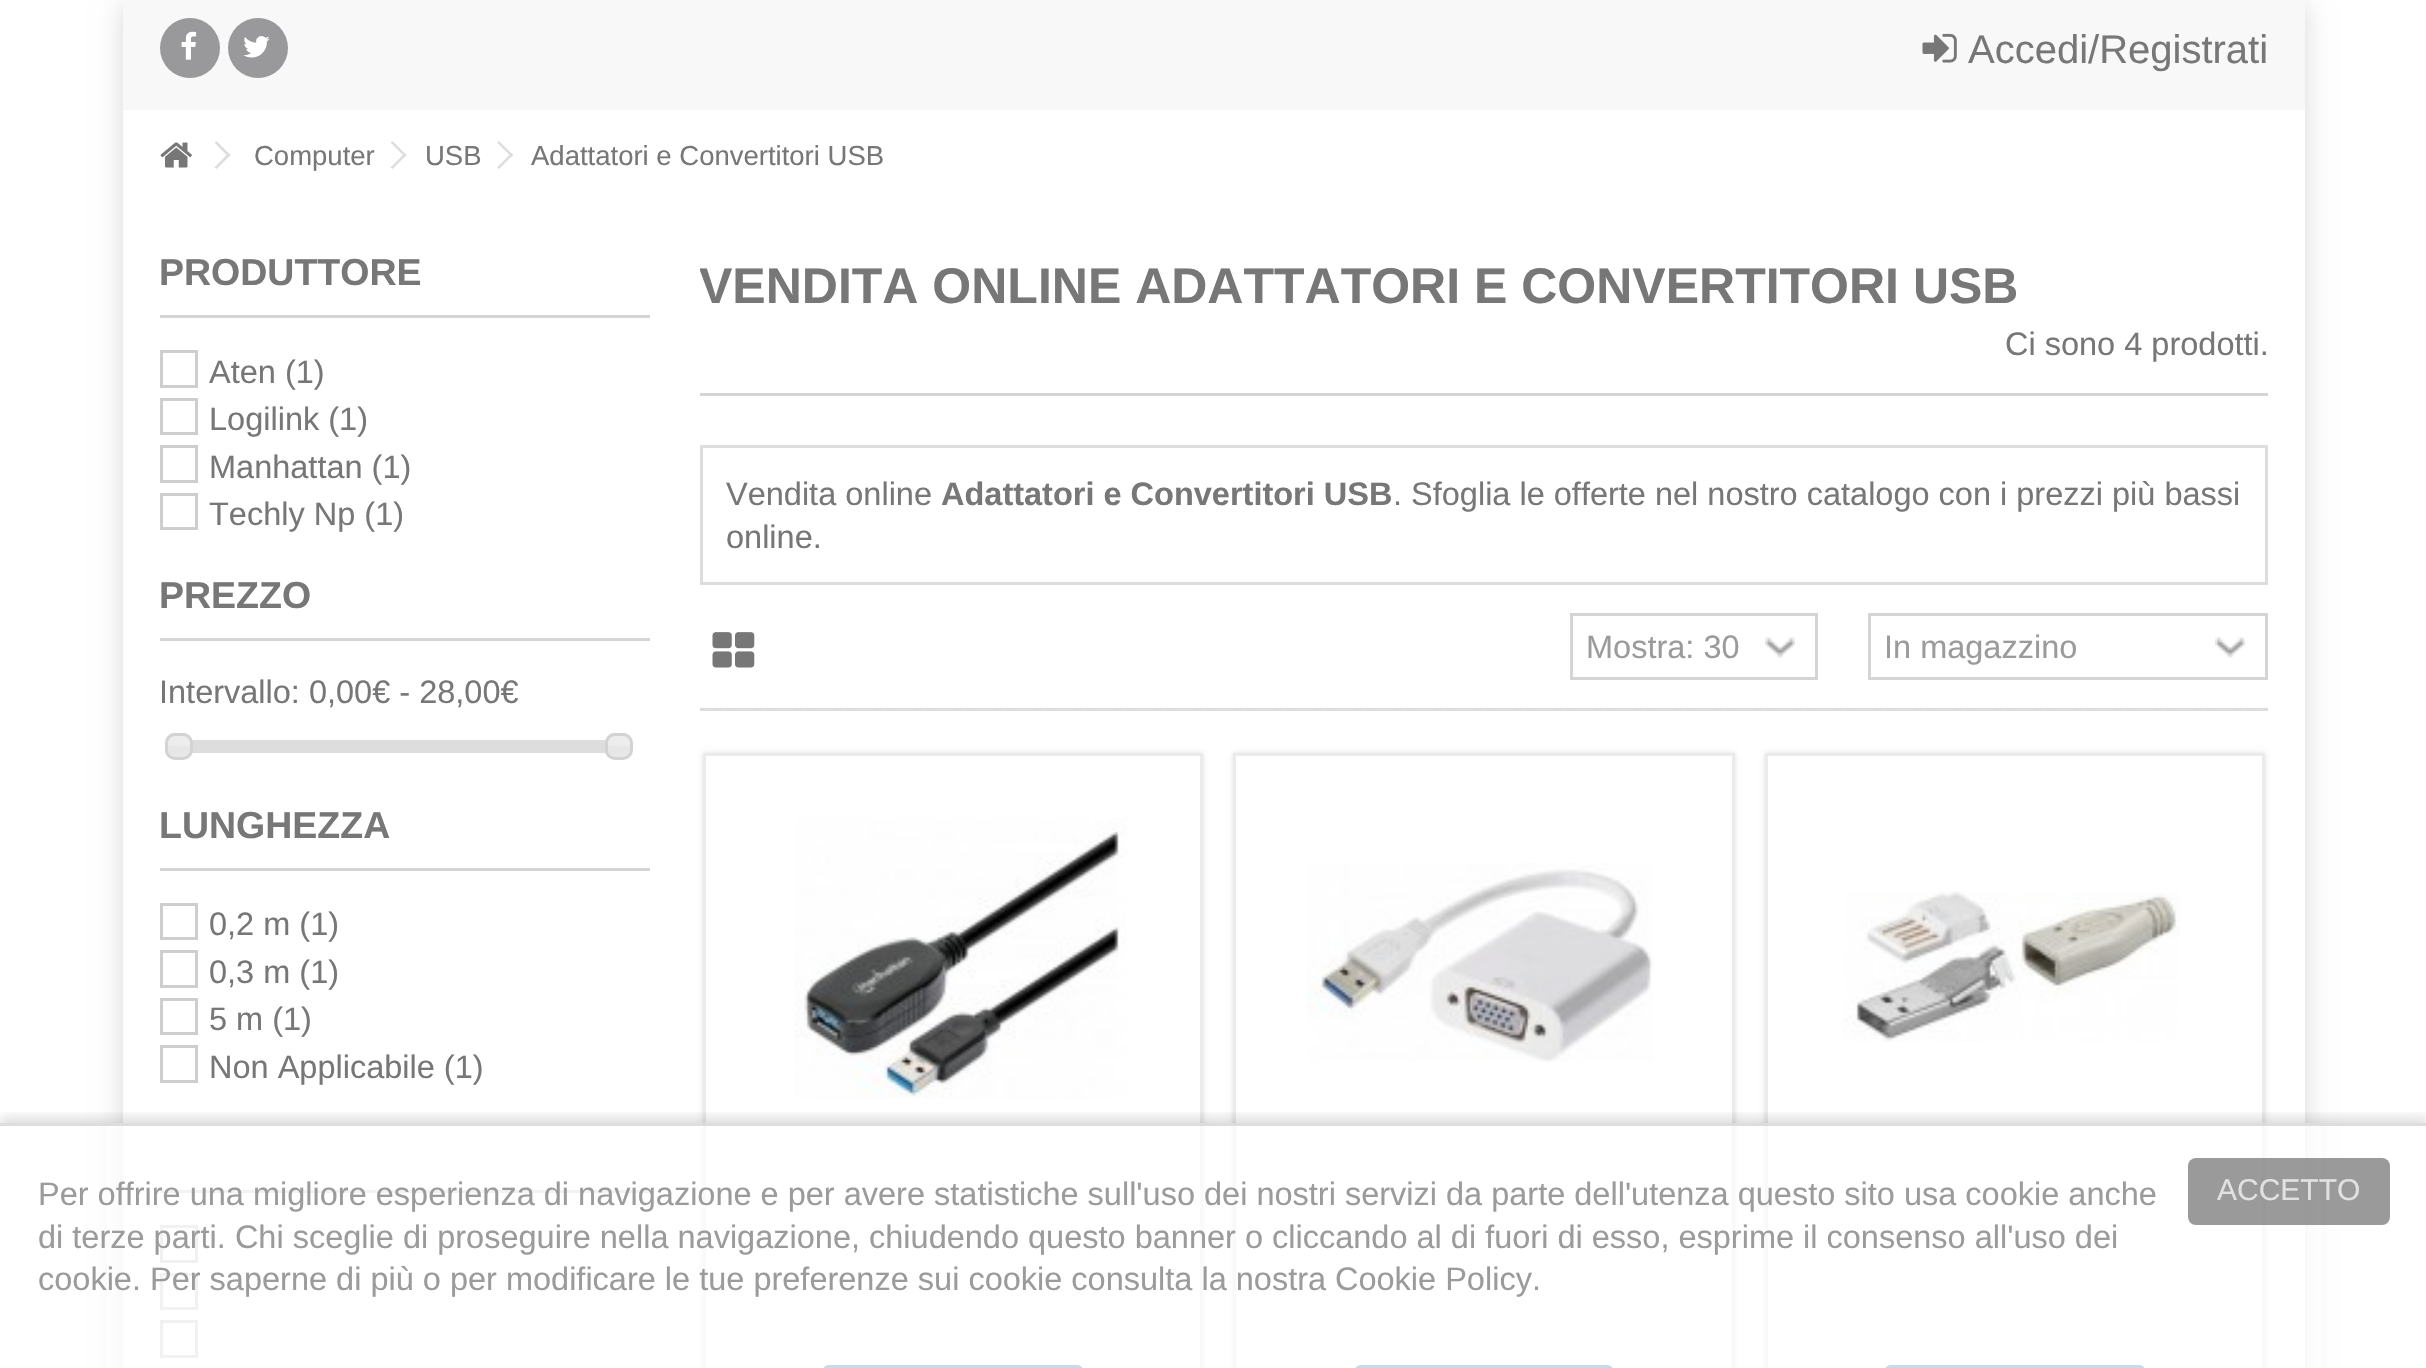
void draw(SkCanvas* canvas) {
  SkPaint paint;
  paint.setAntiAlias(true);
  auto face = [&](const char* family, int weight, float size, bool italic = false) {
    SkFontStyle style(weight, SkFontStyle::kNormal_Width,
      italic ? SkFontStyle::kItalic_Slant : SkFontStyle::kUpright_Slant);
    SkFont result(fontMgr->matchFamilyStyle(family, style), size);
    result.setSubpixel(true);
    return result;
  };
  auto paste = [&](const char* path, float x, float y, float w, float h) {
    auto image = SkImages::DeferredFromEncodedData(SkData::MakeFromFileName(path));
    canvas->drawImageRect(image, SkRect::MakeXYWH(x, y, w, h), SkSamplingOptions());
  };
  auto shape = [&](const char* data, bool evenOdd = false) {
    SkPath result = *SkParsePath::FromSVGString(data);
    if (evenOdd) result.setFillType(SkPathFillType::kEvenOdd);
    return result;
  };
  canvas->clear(0xffffffff);
  canvas->save();
  canvas->clipPath(shape("M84 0H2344V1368H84ZM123 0H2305V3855H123Z", true), true);
  paint.setColor(0x26000000);
  paint.setMaskFilter(SkMaskFilter::MakeBlur(kNormal_SkBlurStyle, 12.5f));
  canvas->drawRect(SkRect::MakeXYWH(123, 5, 2182, 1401), paint);
  paint.setMaskFilter(nullptr);
  canvas->restore();
  paint.setColor(0xfff8f8f8);
  canvas->drawRect(SkRect::MakeXYWH(123, 0, 2182, 110), paint);
  paint.setColor(0xff99999b);
  canvas->drawCircle(190, 48, 30, paint);
  paste("img/1.png", 181, 31, 16, 29);
  canvas->drawCircle(258, 48, 30, paint);
  paste("img/2.png", 243, 36, 27, 22);
  paste("img/3.png", 1922, 33, 35, 30);
  paste("img/4.png", 160, 142, 32, 26);
  paint.setColor(0xffdddddd);
  canvas->drawPath(shape("M216.5 141L230.5 155L228.5 157L214.5 142.5Z"), paint);
  canvas->drawPath(shape("M228.5 153L230.5 155L216.5 169L214.5 167.5Z"), paint);
  canvas->drawPath(shape("M392.5 141L406.5 155L405 157L390.5 142.5Z"), paint);
  canvas->drawPath(shape("M405 153L406.5 155L392.5 169L390.5 167.5Z"), paint);
  canvas->drawPath(shape("M499 141L513 155L511.5 157L497 142.5Z"), paint);
  canvas->drawPath(shape("M511.5 153L513 155L499 169L497 167.5Z"), paint);
  paint.setColor(0xffd6d4d4);
  canvas->drawRect(SkRect::MakeXYWH(160, 315, 490, 3), paint);
  paint.setStroke(true);
  paint.setStrokeWidth(3);
  paint.setColor(0xffcecece);
  canvas->drawRect(SkRect::MakeXYWH(161.5f, 351.5f, 35, 35), paint);
  canvas->drawRect(SkRect::MakeXYWH(161.5f, 399.5f, 35, 34), paint);
  canvas->drawRect(SkRect::MakeXYWH(161.5f, 446.5f, 35, 35), paint);
  canvas->drawRect(SkRect::MakeXYWH(161.5f, 494.5f, 35, 34), paint);
  paint.setStroke(false);
  paint.setColor(0xffd6d4d4);
  canvas->drawRect(SkRect::MakeXYWH(160, 638, 490, 3), paint);
  paint.setStroke(true);
  paint.setColor(0xffdddddd);
  canvas->drawRect(SkRect::MakeXYWH(186.5f, 741.5f, 442, 10), paint);
  paint.setStroke(false);
  canvas->drawRect(SkRect::MakeXYWH(188, 743, 418, 7), paint);
  paste("img/5.png", 165, 732, 27, 25);
  paint.setStroke(true);
  paint.setColor(0xffd3d3d3);
  canvas->drawRoundRect(SkRect::MakeXYWH(166.5f, 734.5f, 25, 24), 8.5f, 8.5f, paint);
  paste("img/6.png", 605, 732, 27, 25);
  canvas->drawRoundRect(SkRect::MakeXYWH(606.5f, 734.5f, 25, 24), 8.5f, 8.5f, paint);
  paint.setStroke(false);
  paint.setColor(0xffd6d4d4);
  canvas->drawRect(SkRect::MakeXYWH(160, 868, 490, 3), paint);
  paint.setStroke(true);
  paint.setColor(0xffcecece);
  canvas->drawRect(SkRect::MakeXYWH(161.5f, 904.5f, 35, 34), paint);
  canvas->drawRect(SkRect::MakeXYWH(161.5f, 951.5f, 35, 35), paint);
  canvas->drawRect(SkRect::MakeXYWH(161.5f, 999.5f, 35, 34), paint);
  canvas->drawRect(SkRect::MakeXYWH(161.5f, 1046.5f, 35, 35), paint);
  paint.setStroke(false);
  paint.setColor(0xffd6d4d4);
  canvas->drawRect(SkRect::MakeXYWH(160, 1190, 490, 3), paint);
  paint.setStroke(true);
  paint.setColor(0xffcecece);
  canvas->drawRect(SkRect::MakeXYWH(161.5f, 1226.5f, 35, 35), paint);
  canvas->drawRect(SkRect::MakeXYWH(161.5f, 1274.5f, 35, 34), paint);
  canvas->drawRect(SkRect::MakeXYWH(161.5f, 1321.5f, 35, 35), paint);
  paint.setStroke(false);
  paint.setColor(0xffd6d4d4);
  canvas->drawRect(SkRect::MakeXYWH(700, 393, 1568, 3), paint);
  paint.setStroke(true);
  paint.setColor(0xffdddddd);
  canvas->drawRect(SkRect::MakeXYWH(701.5f, 446.5f, 1565, 137), paint);
  paint.setStroke(false);
  canvas->drawRect(SkRect::MakeXYWH(700, 708, 1568, 3), paint);
  paste("img/7.png", 712, 632, 43, 36);
  paste("img/8.png", 1765, 637, 30, 21);
  paint.setStroke(true);
  paint.setColor(0xffd6d4d4);
  canvas->drawRect(SkRect::MakeXYWH(1571.5f, 614.5f, 245, 64), paint);
  paste("img/9.png", 2215, 637, 30, 21);
  canvas->drawRect(SkRect::MakeXYWH(1869.5f, 614.5f, 397, 64), paint);
  paint.setStrokeWidth(2.5f);
  paint.setColor(0xffdddddd);
  paint.setPathEffect(SkDashPathEffect::Make({{2.5f, 2.5f}}, 0));
  canvas->drawPath(shape("M700 709H2267.5"), paint);
  paint.setPathEffect(nullptr);
  canvas->save();
  canvas->clipPath(shape("M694 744H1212V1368H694ZM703 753H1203V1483H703Z", true), true);
  paint.setStroke(false);
  paint.setColor(0x1f000000);
  paint.setMaskFilter(SkMaskFilter::MakeBlur(kNormal_SkBlurStyle, 2.5f));
  canvas->drawRect(SkRect::MakeXYWH(703, 753, 500, 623), paint);
  paint.setMaskFilter(nullptr);
  canvas->restore();
  paint.setStroke(true);
  paint.setStrokeWidth(3);
  paint.setColor(0xffebebeb);
  canvas->drawRect(SkRect::MakeXYWH(704.5f, 754.5f, 497, 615), paint);
  paste("img/10.png", 795, 818, 332, 281);
  paint.setStroke(false);
  paint.setColor(0xff4181c0);
  canvas->drawRoundRect(SkRect::MakeXYWH(823, 1365, 260, 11), 8, 8, paint);
  canvas->save();
  canvas->clipPath(shape("M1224 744H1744V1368H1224ZM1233 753H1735V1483H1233Z", true), true);
  paint.setColor(0x1f000000);
  paint.setMaskFilter(SkMaskFilter::MakeBlur(kNormal_SkBlurStyle, 2.5f));
  canvas->drawRect(SkRect::MakeXYWH(1233, 753, 502, 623), paint);
  paint.setMaskFilter(nullptr);
  canvas->restore();
  paint.setStroke(true);
  paint.setColor(0xffebebeb);
  canvas->drawRect(SkRect::MakeXYWH(1234.5f, 754.5f, 499, 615), paint);
  paste("img/11.png", 1307, 863, 346, 199);
  paint.setStroke(false);
  paint.setColor(0xff4181c0);
  canvas->drawRoundRect(SkRect::MakeXYWH(1355, 1365, 258, 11), 8, 8, paint);
  canvas->save();
  canvas->clipPath(shape("M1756 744H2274V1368H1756ZM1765 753H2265V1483H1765Z", true), true);
  paint.setColor(0x1f000000);
  paint.setMaskFilter(SkMaskFilter::MakeBlur(kNormal_SkBlurStyle, 2.5f));
  canvas->drawRect(SkRect::MakeXYWH(1765, 753, 500, 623), paint);
  paint.setMaskFilter(nullptr);
  canvas->restore();
  paint.setStroke(true);
  paint.setColor(0xffebebeb);
  canvas->drawRect(SkRect::MakeXYWH(1766.5f, 754.5f, 497, 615), paint);
  paste("img/12.png", 1843, 891, 337, 151);
  paint.setStroke(false);
  paint.setColor(0xff4181c0);
  canvas->drawRoundRect(SkRect::MakeXYWH(1885, 1365, 260, 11), 8, 8, paint);
  canvas->save();
  canvas->clipRect(SkRect::MakeXYWH(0, 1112, 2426, 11));
  paint.setColor(0x24000000);
  paint.setMaskFilter(SkMaskFilter::MakeBlur(kNormal_SkBlurStyle, 6));
  canvas->drawRect(SkRect::MakeXYWH(0, 1118, 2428, 247), paint);
  paint.setMaskFilter(nullptr);
  canvas->restore();
  paint.setColor(0xb3ffffff);
  canvas->drawRect(SkRect::MakeXYWH(107, 1123, 2214, 245), paint);
  paint.setColor(0xb3cecece);
  canvas->drawRect(SkRect::MakeXYWH(0, 1123, 2426, 3), paint);
  paint.setColor(0xb36f6f6f);
  canvas->drawRoundRect(SkRect::MakeXYWH(2188, 1158, 202, 67), 8, 8, paint);
  auto f0 = face("Liberation Sans", 400, 40);
  paint.setColor(0xff777777);
  canvas->drawString("Accedi/Registrati", 1968, 63, f0, paint);
  auto f1 = face("Liberation Sans", 400, 27.5f);
  {
    const struct { const char* s; float x, y; } items[] = {
      {"Computer", 254, 165},
      {"USB", 425, 165},
      {"Adattatori e Convertitori USB", 531, 165},
    };
    for (auto [s, x, y] : items) {
      canvas->drawString(s, x, y, f1, paint);
    }
  }
  auto f2 = face("Liberation Sans", 700, 37.5f);
  canvas->drawString("PRODUTTORE", 159, 285, f2, paint);
  auto f3 = face("Liberation Sans", 400, 32.5f);
  {
    const struct { const char* s; float x, y; } items[] = {
      {"Aten (1)", 209, 383},
      {"Logilink (1)", 209, 430},
      {"Manhattan (1)", 209, 478},
      {"Techly Np (1)", 209, 525},
    };
    for (auto [s, x, y] : items) {
      canvas->drawString(s, x, y, f3, paint);
    }
  }
  canvas->drawString("PREZZO", 159, 608, f2, paint);
  canvas->drawString("Intervallo: 0,00€ - 28,00€", 159, 703, f3, paint);
  canvas->drawString("LUNGHEZZA", 159, 838, f2, paint);
  {
    const struct { const char* s; float x, y; } items[] = {
      {"0,2 m (1)", 209, 935},
      {"0,3 m (1)", 209, 983},
      {"5 m (1)", 209, 1030},
      {"Non Applicabile (1)", 209, 1078},
    };
    for (auto [s, x, y] : items) {
      canvas->drawString(s, x, y, f3, paint);
    }
  }
  canvas->save();
  canvas->clipRect(SkRect::MakeXYWH(700, 253, 1318, 65));
  auto f4 = face("Liberation Sans", 700, 50);
  canvas->drawString("VENDITA ONLINE ADATTATORI E CONVERTITORI USB", 699, 303, f4, paint);
  canvas->restore();
  canvas->drawString("Ci sono 4 prodotti.", 2005, 355, f3, paint);
  canvas->drawString("Vendita online", 726, 505, f3, paint);
  auto f5 = face("Liberation Sans", 700, 32.5f);
  canvas->drawString("Adattatori e Convertitori USB", 941, 505, f5, paint);
  canvas->drawString(". Sfoglia le offerte nel nostro catalogo con i prezzi più bassi", 1393, 505, f3, paint);
  canvas->drawString("online.", 726, 548, f3, paint);
  paint.setColor(0xff9c9b9b);
  {
    const struct { const char* s; float x, y; } items[] = {
      {"Mostra: 30", 1586, 658},
      {"In magazzino", 1884, 658},
      {"Per offrire una migliore esperienza di navigazione e per avere statistiche sull'uso dei nostri servizi da parte dell'utenza questo sito usa cookie anche", 38, 1205},
      {"di terze parti. Chi sceglie di proseguire nella navigazione, chiudendo questo banner o cliccando al di fuori di esso, esprime il consenso all'uso dei", 38, 1248},
      {"cookie. Per saperne di più o per modificare le tue preferenze sui cookie consulta la nostra", 38, 1290},
      {"Cookie Policy", 1335, 1290},
      {".", 1532, 1290},
    };
    for (auto [s, x, y] : items) {
      canvas->drawString(s, x, y, f3, paint);
    }
  }
  auto f6 = face("Liberation Sans", 400, 30);
  paint.setColor(0xffe1e1e1);
  canvas->drawString("ACCETTO", 2217, 1200, f6, paint);
}
